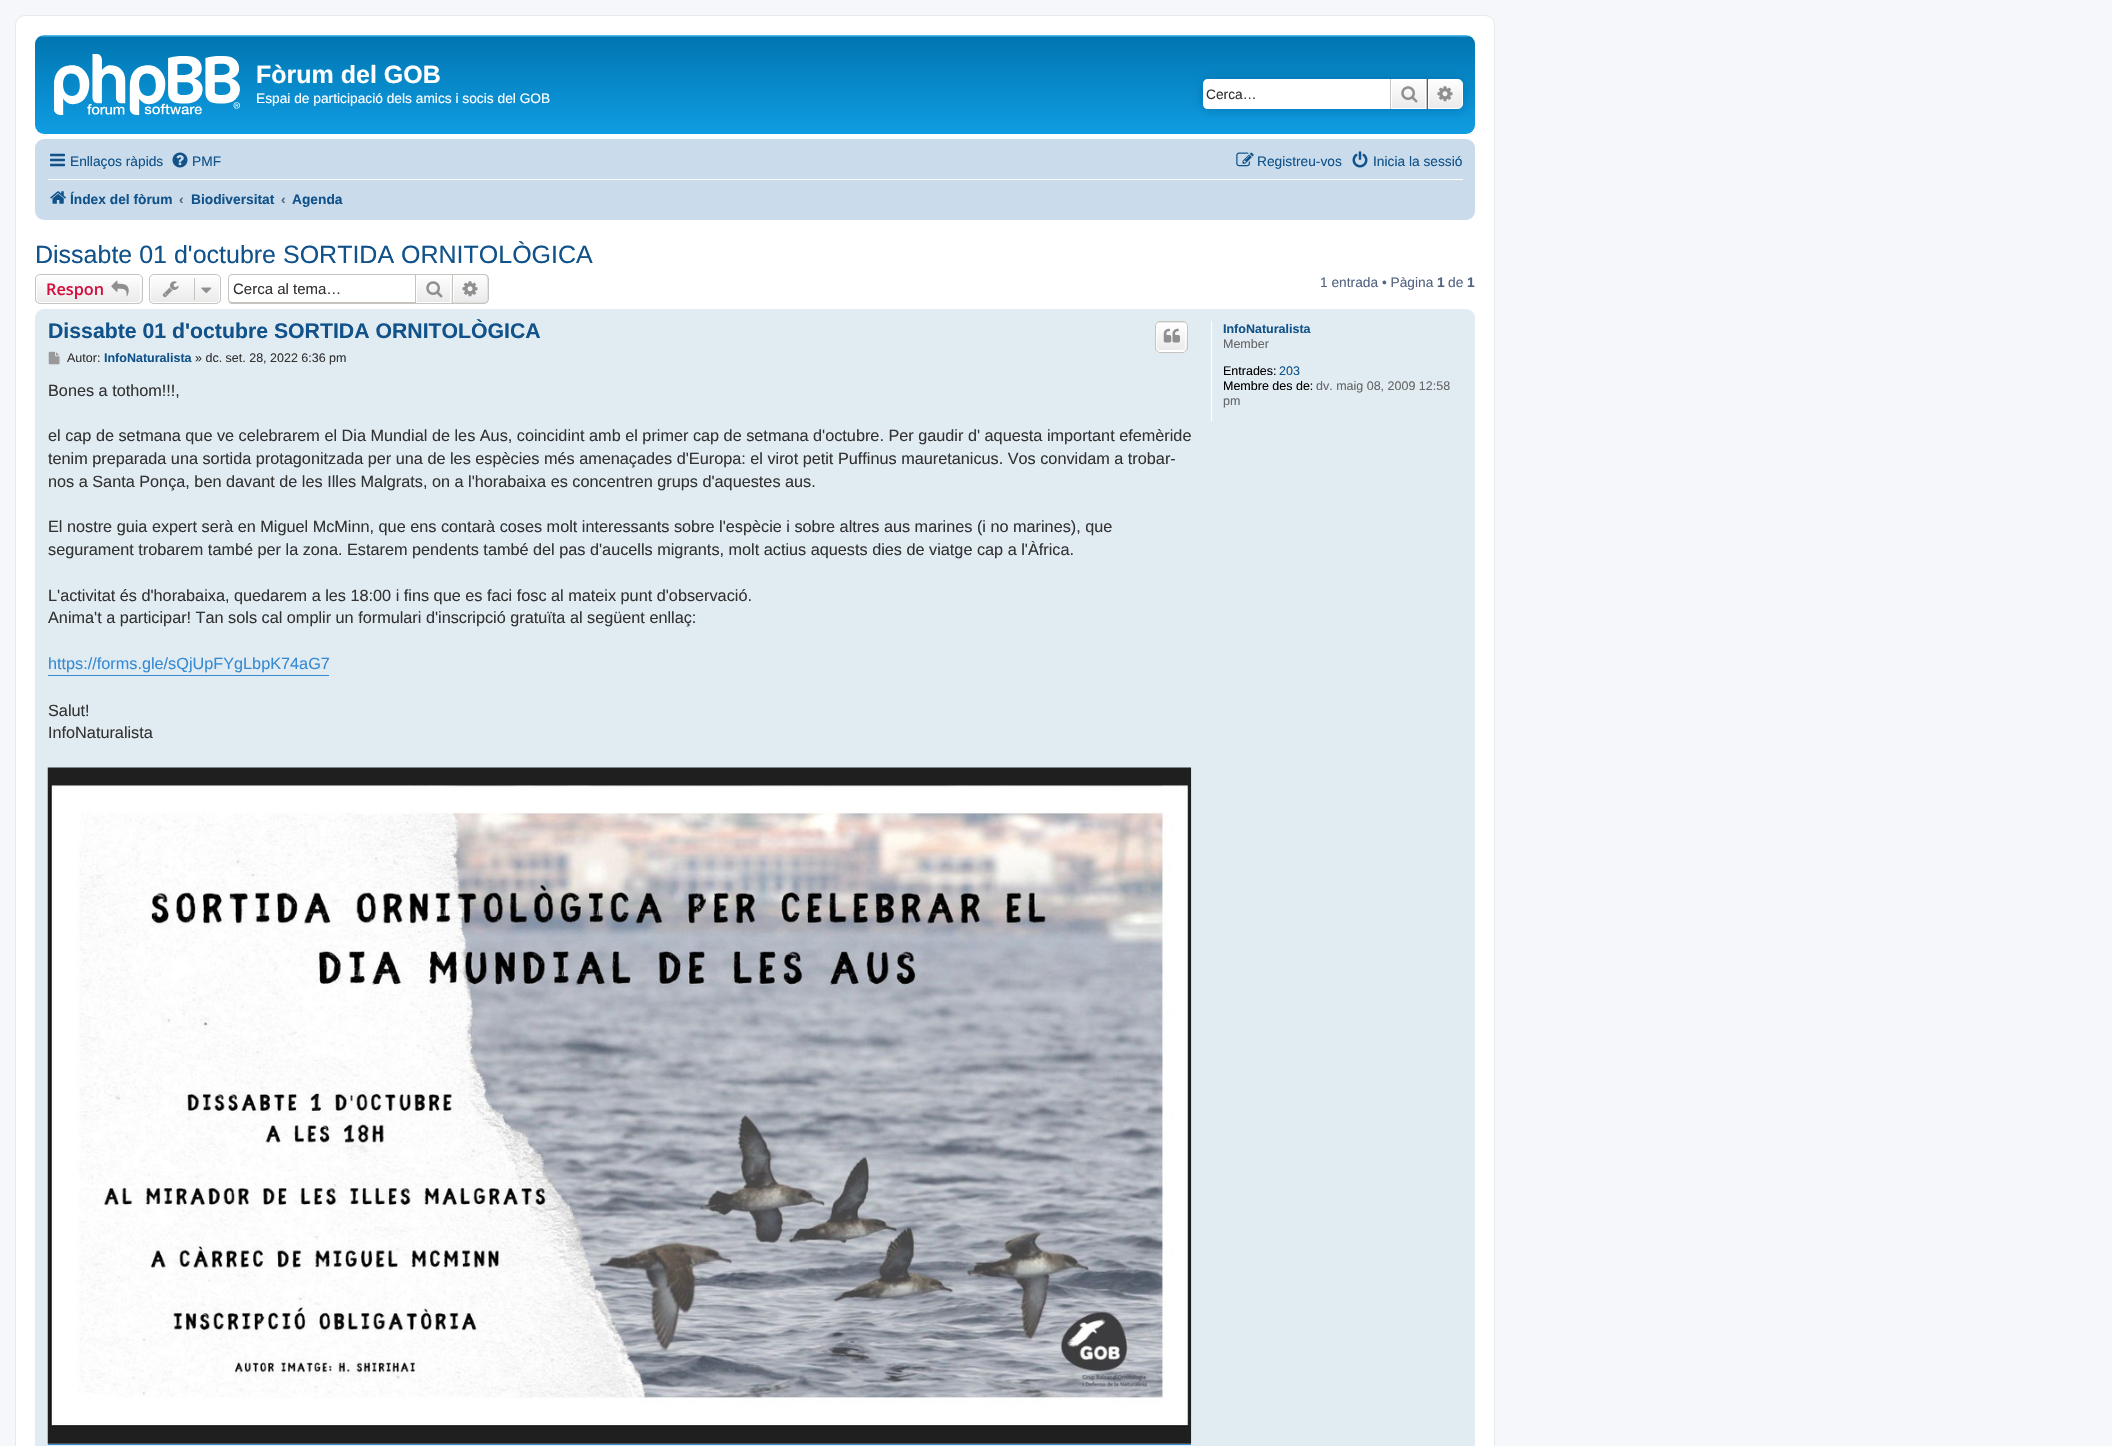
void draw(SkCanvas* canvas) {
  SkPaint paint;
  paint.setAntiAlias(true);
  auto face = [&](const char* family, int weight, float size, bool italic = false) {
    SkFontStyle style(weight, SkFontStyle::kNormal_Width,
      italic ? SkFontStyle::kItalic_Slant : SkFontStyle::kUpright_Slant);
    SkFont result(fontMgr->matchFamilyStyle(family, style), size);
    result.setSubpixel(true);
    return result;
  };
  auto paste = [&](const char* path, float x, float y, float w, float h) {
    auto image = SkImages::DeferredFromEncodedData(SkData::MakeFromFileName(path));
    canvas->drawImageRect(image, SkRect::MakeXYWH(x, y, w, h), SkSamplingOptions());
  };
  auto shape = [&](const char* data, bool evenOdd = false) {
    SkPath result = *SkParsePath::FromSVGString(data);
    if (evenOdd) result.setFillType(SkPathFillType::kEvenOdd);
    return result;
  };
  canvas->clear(0xfff5f7fa);
  paint.setColor(0xffffffff);
  canvas->drawRoundRect(SkRect::MakeXYWH(15.5f, 15.5f, 1479, 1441), 9.5f, 9.5f, paint);
  paint.setStroke(true);
  paint.setStrokeWidth(1);
  paint.setColor(0xffe6e9ed);
  canvas->drawRoundRect(SkRect::MakeXYWH(15.5f, 15.5f, 1479, 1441), 9.5f, 9.5f, paint);
  paint.setStroke(false);
  {
    const SkColor colors[] = {0xff6aceff, 0xff0076b1, 0xff12a3eb};
    const float stops[] = {0, 0.02f, 1};
    const SkPoint ends[] = {{755, 35}, {755, 150}};
    paint.setShader(SkGradientShader::MakeLinear(ends, colors, stops, 3, SkTileMode::kClamp));
    paint.setAlpha(255);
  }
  canvas->drawRoundRect(SkRect::MakeXYWH(35, 35, 1440, 99), 9, 9, paint);
  paste("img/1.png", 54, 54, 186, 61);
  paint.setShader(nullptr);
  paint.setColor(0xff0075b0);
  paint.setMaskFilter(SkMaskFilter::MakeBlur(kNormal_SkBlurStyle, 6));
  canvas->drawRoundRect(SkRect::MakeXYWH(1203, 79, 260, 30), 5, 5, paint);
  paint.setMaskFilter(nullptr);
  paint.setColor(0xffffffff);
  canvas->drawPath(shape("M1208 79H1390V109H1208C1205 109 1203 107 1203 104V84C1203 81 1205 79 1208 79Z"), paint);
  {
    const SkColor colors[] = {0xffffffff, 0xffe9e9e9};
    const float stops[] = {0, 1};
    const SkPoint ends[] = {{1409, 79}, {1409, 109}};
    paint.setShader(SkGradientShader::MakeLinear(ends, colors, stops, 2, SkTileMode::kClamp));
    paint.setAlpha(255);
  }
  canvas->drawRect(SkRect::MakeXYWH(1392, 80, 33, 28), paint);
  paint.setStroke(true);
  paint.setShader(nullptr);
  paint.setColor(0xffffffff);
  canvas->drawRect(SkRect::MakeXYWH(1391.5f, 79.5f, 34, 29), paint);
  paint.setStroke(false);
  paint.setColor(0xffc7c3bf);
  canvas->drawRect(SkRect::MakeXYWH(1426, 79, 1, 30), paint);
  canvas->drawRect(SkRect::MakeXYWH(1390, 79, 1, 30), paint);
  paste("img/2.png", 1401, 86, 17, 17);
  {
    const SkColor colors[] = {0xffffffff, 0xffe9e9e9};
    const float stops[] = {0, 1};
    const SkPoint ends[] = {{1445, 79}, {1445, 109}};
    paint.setShader(SkGradientShader::MakeLinear(ends, colors, stops, 2, SkTileMode::kClamp));
    paint.setAlpha(255);
  }
  canvas->drawPath(shape("M1428.5 79.5H1458C1460.5 79.5 1462.5 81.5 1462.5 84V104C1462.5 106.5 1460.5 108.5 1458 108.5H1428.5Z"), paint);
  paint.setStroke(true);
  paint.setShader(nullptr);
  paint.setColor(0xffffffff);
  canvas->drawPath(shape("M1428.5 79.5H1458C1460.5 79.5 1462.5 81.5 1462.5 84V104C1462.5 106.5 1460.5 108.5 1458 108.5H1428.5Z"), paint);
  paste("img/3.png", 1437, 86, 16, 16);
  paint.setStroke(false);
  paint.setColor(0xffcadceb);
  canvas->drawRoundRect(SkRect::MakeXYWH(35, 139, 1440, 81), 9, 9, paint);
  paste("img/4.png", 50, 153, 15, 14);
  paste("img/5.png", 172, 152, 16, 16);
  paste("img/6.png", 1236, 152, 18, 15);
  paste("img/7.png", 1352, 151, 16, 17);
  paint.setColor(0xffffffff);
  canvas->drawRect(SkRect::MakeXYWH(48, 179, 1415, 1), paint);
  paste("img/8.png", 50, 191, 16, 13);
  canvas->save();
  canvas->clipPath(shape("M40 274H138C141 274 143 276 143 279V299C143 302 141 304 138 304H40C37 304 35 302 35 299V279C35 276 37 274 40 274Z"), true);
  {
    const SkColor colors[] = {0xffffffff, 0xffe9e9e9};
    const float stops[] = {0, 1};
    const SkPoint ends[] = {{89, 275}, {89, 303}};
    paint.setShader(SkGradientShader::MakeLinear(ends, colors, stops, 2, SkTileMode::kClamp));
    paint.setAlpha(255);
  }
  canvas->drawRect(SkRect::MakeXYWH(35, 275, 108, 28), paint);
  canvas->restore();
  paint.setStroke(true);
  paint.setShader(nullptr);
  paint.setColor(0xffffffff);
  canvas->drawRoundRect(SkRect::MakeXYWH(36.5f, 275.5f, 104, 27), 3.5f, 3.5f, paint);
  paint.setColor(0xffc7c3bf);
  canvas->drawRoundRect(SkRect::MakeXYWH(35.5f, 274.5f, 107, 29), 4.5f, 4.5f, paint);
  paste("img/9.png", 111, 280, 18, 17);
  canvas->save();
  canvas->clipPath(shape("M154 274H216C219 274 221 276 221 279V299C221 302 219 304 216 304H154C151 304 149 302 149 299V279C149 276 151 274 154 274Z"), true);
  paint.setStroke(false);
  {
    const SkColor colors[] = {0xffffffff, 0xffe9e9e9};
    const float stops[] = {0, 1};
    const SkPoint ends[] = {{185, 275}, {185, 303}};
    paint.setShader(SkGradientShader::MakeLinear(ends, colors, stops, 2, SkTileMode::kClamp));
    paint.setAlpha(255);
  }
  canvas->drawRect(SkRect::MakeXYWH(149, 275, 72, 28), paint);
  canvas->restore();
  paint.setStroke(true);
  paint.setShader(nullptr);
  paint.setColor(0xffffffff);
  canvas->drawRoundRect(SkRect::MakeXYWH(150.5f, 275.5f, 69, 27), 3.5f, 3.5f, paint);
  paint.setColor(0xffc7c3bf);
  canvas->drawRoundRect(SkRect::MakeXYWH(149.5f, 274.5f, 71, 29), 4.5f, 4.5f, paint);
  paste("img/10.png", 162, 281, 17, 17);
  paint.setStroke(false);
  canvas->drawRect(SkRect::MakeXYWH(194, 278, 1, 22), paint);
  paste("img/11.png", 201, 287, 11, 6);
  canvas->drawPath(shape("M232 274H415V304H232C230 304 228 302 228 299V279C228 276 230 274 232 274ZM232 275H415V302H232C230 302 229 301 229 299V279C229 277 230 275 232 275Z", true), paint);
  {
    const SkColor colors[] = {0xffffffff, 0xffe9e9e9};
    const float stops[] = {0, 1};
    const SkPoint ends[] = {{434, 275}, {434, 303}};
    paint.setShader(SkGradientShader::MakeLinear(ends, colors, stops, 2, SkTileMode::kClamp));
    paint.setAlpha(255);
  }
  canvas->drawRect(SkRect::MakeXYWH(417, 278, 35, 25), paint);
  paint.setStroke(true);
  paint.setShader(nullptr);
  paint.setColor(0xffffffff);
  canvas->drawRect(SkRect::MakeXYWH(416.5f, 275.5f, 34, 27), paint);
  paint.setColor(0xffc7c3bf);
  canvas->drawRect(SkRect::MakeXYWH(415.5f, 274.5f, 37, 29), paint);
  paste("img/12.png", 426, 281, 17, 17);
  paint.setStroke(false);
  {
    const SkColor colors[] = {0xffffffff, 0xffe9e9e9};
    const float stops[] = {0, 1};
    const SkPoint ends[] = {{470, 275}, {470, 303}};
    paint.setShader(SkGradientShader::MakeLinear(ends, colors, stops, 2, SkTileMode::kClamp));
    paint.setAlpha(255);
  }
  canvas->drawPath(shape("M453.5 275.5H484C486 275.5 487.5 277 487.5 279V299C487.5 301 486 302.5 484 302.5H453.5Z"), paint);
  paint.setStroke(true);
  paint.setShader(nullptr);
  paint.setColor(0xffffffff);
  canvas->drawPath(shape("M453.5 275.5H484C486 275.5 487.5 277 487.5 279V299C487.5 301 486 302.5 484 302.5H453.5Z"), paint);
  paint.setStroke(false);
  paint.setColor(0xffc7c3bf);
  canvas->drawPath(shape("M452.5 274H484C486.5 274 489 276 489 279V299C489 301.5 486.5 304 484 304H452.5ZM452.5 275H484C486 275 487.5 276.5 487.5 279V299C487.5 301 486 302.5 484 302.5H452.5Z", true), paint);
  paste("img/13.png", 462, 281, 16, 16);
  paint.setColor(0xffe1ebf2);
  canvas->drawRoundRect(SkRect::MakeXYWH(35, 309, 1440, 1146), 9, 9, paint);
  canvas->save();
  canvas->clipPath(shape("M1160 321H1183C1186 321 1188 323 1188 326V348C1188 351 1186 353 1183 353H1160C1157 353 1155 351 1155 348V326C1155 323 1157 321 1160 321Z"), true);
  {
    const SkColor colors[] = {0xffffffff, 0xffe9e9e9};
    const float stops[] = {0, 1};
    const SkPoint ends[] = {{1171, 294}, {1171, 323}};
    paint.setShader(SkGradientShader::MakeLinear(ends, colors, stops, 2, SkTileMode::kClamp));
    paint.setAlpha(255);
  }
  canvas->drawRect(SkRect::MakeXYWH(1155, 321, 33, 2), paint);
  {
    const SkColor colors[] = {0xffffffff, 0xffe9e9e9};
    const float stops[] = {0, 1};
    const SkPoint ends[] = {{1171, 323}, {1171, 351}};
    paint.setShader(SkGradientShader::MakeLinear(ends, colors, stops, 2, SkTileMode::kClamp));
    paint.setAlpha(255);
  }
  canvas->drawRect(SkRect::MakeXYWH(1155, 323, 33, 28), paint);
  {
    const SkColor colors[] = {0xffffffff, 0xffe9e9e9};
    const float stops[] = {0, 1};
    const SkPoint ends[] = {{1171, 351}, {1171, 380}};
    paint.setShader(SkGradientShader::MakeLinear(ends, colors, stops, 2, SkTileMode::kClamp));
    paint.setAlpha(255);
  }
  canvas->drawRect(SkRect::MakeXYWH(1155, 351, 33, 2), paint);
  canvas->restore();
  paint.setStroke(true);
  paint.setShader(nullptr);
  paint.setColor(0xffffffff);
  canvas->drawRoundRect(SkRect::MakeXYWH(1156.5f, 323.5f, 29, 27), 3.5f, 3.5f, paint);
  paint.setColor(0xffc7c3bf);
  canvas->drawRoundRect(SkRect::MakeXYWH(1155.5f, 321.5f, 32, 31), 4.5f, 4.5f, paint);
  paste("img/14.png", 1163, 328, 17, 15);
  paste("img/15.png", 48, 351, 12, 14);
  paint.setStroke(false);
  paint.setColor(0xff368ad2);
  canvas->drawRect(SkRect::MakeXYWH(48, 675, 281, 1), paint);
  canvas->drawRect(SkRect::MakeXYWH(48, 1444, 1143, 1), paint);
  paste("img/16.png", 47, 767, 1145, 677);
  paint.setColor(0xffffffff);
  canvas->drawRect(SkRect::MakeXYWH(1211, 321, 1, 100), paint);
  auto f0 = face("Liberation Sans", 700, 25);
  canvas->drawString("Fòrum del GOB", 256, 83, f0, paint);
  auto f1 = face("Liberation Sans", 400, 13.75f);
  canvas->drawString("Espai de participació dels amics i socis del GOB", 256, 103, f1, paint);
  paint.setColor(0xff333333);
  canvas->drawString("Cerca…", 1206, 99, f1, paint);
  paint.setColor(0xff105289);
  {
    const struct { const char* s; float x, y; } items[] = {
      {"Enllaços ràpids", 70, 166},
      {"PMF", 192, 166},
      {"Registreu-vos", 1257, 166},
      {"Inicia la sessió", 1373, 166},
    };
    for (auto [s, x, y] : items) {
      canvas->drawString(s, x, y, f1, paint);
    }
  }
  auto f2 = face("Liberation Sans", 700, 13.75f);
  canvas->drawString("Índex del fòrum", 70, 204, f2, paint);
  paint.setColor(0xff536482);
  canvas->drawString("‹", 179, 204, f2, paint);
  paint.setColor(0xff105289);
  canvas->drawString("Biodiversitat", 191, 204, f2, paint);
  paint.setColor(0xff536482);
  canvas->drawString("‹", 281, 204, f2, paint);
  paint.setColor(0xff105289);
  canvas->drawString("Agenda", 292, 204, f2, paint);
  auto f3 = face("Liberation Sans", 400, 25);
  canvas->drawString("Dissabte 01 d'octubre SORTIDA ORNITOLÒGICA", 35, 263, f3, paint);
  auto f4 = face("Open Sans", 600, 16.25f);
  paint.setColor(0xffd31141);
  canvas->drawString("Respon", 46, 295, f4, paint);
  auto f5 = face("Liberation Sans", 400, 15);
  paint.setColor(0xff333333);
  canvas->drawString("Cerca al tema…", 233, 294, f5, paint);
  paint.setColor(0xff536482);
  canvas->drawString("1 entrada • Pàgina", 1320, 287, f1, paint);
  canvas->drawString("1", 1437, 287, f2, paint);
  canvas->drawString("de", 1448, 287, f1, paint);
  canvas->drawString("1", 1467, 287, f2, paint);
  auto f6 = face("Liberation Sans", 700, 21.25f);
  paint.setColor(0xff105289);
  canvas->drawString("Dissabte 01 d'octubre SORTIDA ORNITOLÒGICA", 48, 338, f6, paint);
  auto f7 = face("Liberation Sans", 400, 12.5f);
  paint.setColor(0xff333333);
  canvas->drawString("Autor:", 67, 362, f7, paint);
  auto f8 = face("Liberation Sans", 700, 12.5f);
  paint.setColor(0xff105289);
  canvas->drawString("InfoNaturalista", 104, 362, f8, paint);
  paint.setColor(0xff333333);
  canvas->drawString("» dc. set. 28, 2022 6:36 pm", 195, 362, f7, paint);
  auto f9 = face("Liberation Sans", 400, 16.25f);
  {
    const struct { const char* s; float x, y; } items[] = {
      {"Bones a tothom!!!,", 48, 396},
      {"el cap de setmana que ve celebrarem el Dia Mundial de les Aus, coincidint amb el primer cap de setmana d'octubre. Per gaudir d' aquesta important efemèride", 48, 441},
      {"tenim preparada una sortida protagonitzada per una de les espècies més amenaçades d'Europa: el virot petit Puffinus mauretanicus. Vos convidam a trobar-", 48, 464},
      {"nos a Santa Ponça, ben davant de les Illes Malgrats, on a l'horabaixa es concentren grups d'aquestes aus.", 48, 487},
      {"El nostre guia expert serà en Miguel McMinn, que ens contarà coses molt interessants sobre l'espècie i sobre altres aus marines (i no marines), que", 48, 532},
      {"segurament trobarem també per la zona. Estarem pendents també del pas d'aucells migrants, molt actius aquests dies de viatge cap a l'Àfrica.", 48, 555},
      {"L'activitat és d'horabaixa, quedarem a les 18:00 i fins que es faci fosc al mateix punt d'observació.", 48, 601},
      {"Anima't a participar! Tan sols cal omplir un formulari d'inscripció gratuïta al següent enllaç:", 48, 623},
    };
    for (auto [s, x, y] : items) {
      canvas->drawString(s, x, y, f9, paint);
    }
  }
  paint.setColor(0xff368ad2);
  canvas->drawString("https://forms.gle/sQjUpFYgLbpK74aG7", 48, 669, f9, paint);
  paint.setColor(0xff333333);
  canvas->drawString("Salut!", 48, 716, f9, paint);
  canvas->drawString("InfoNaturalista", 48, 738, f9, paint);
  paint.setColor(0xff105289);
  canvas->drawString("InfoNaturalista", 1223, 333, f8, paint);
  paint.setColor(0xff666666);
  canvas->drawString("Member", 1223, 348, f7, paint);
  paint.setColor(0xff000000);
  canvas->drawString("Entrades:", 1223, 375, f7, paint);
  paint.setColor(0xff105289);
  canvas->drawString("203", 1279, 375, f7, paint);
  paint.setColor(0xff000000);
  canvas->drawString("Membre des de:", 1223, 390, f7, paint);
  paint.setColor(0xff666666);
  canvas->drawString("dv. maig 08, 2009 12:58", 1316, 390, f7, paint);
  canvas->drawString("pm", 1223, 405, f7, paint);
}
